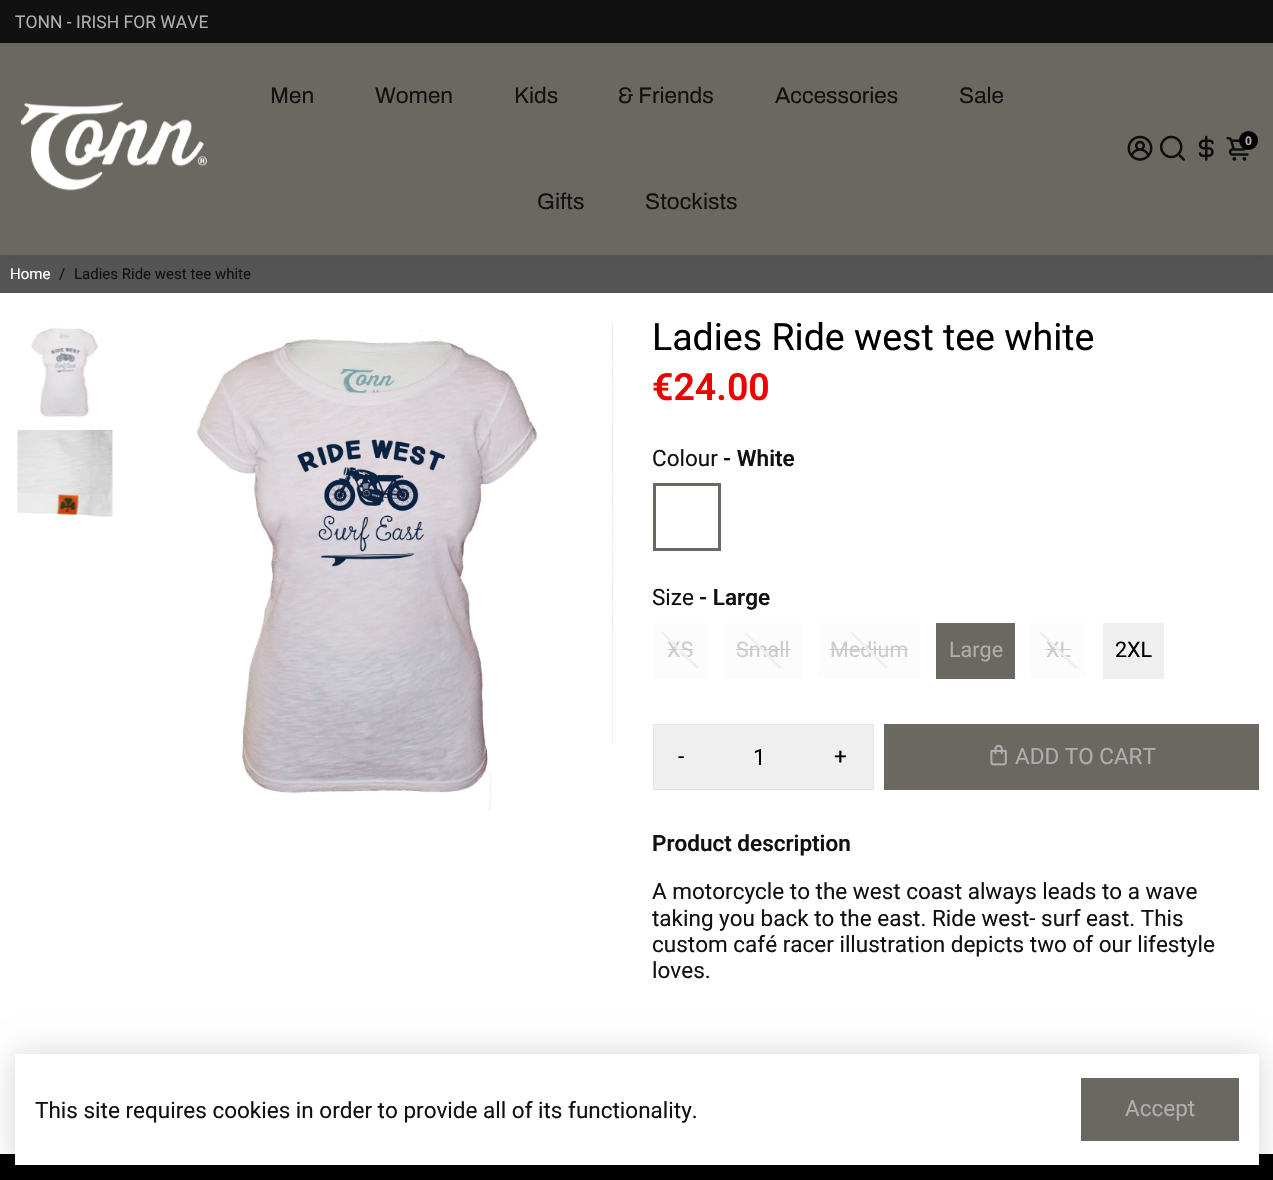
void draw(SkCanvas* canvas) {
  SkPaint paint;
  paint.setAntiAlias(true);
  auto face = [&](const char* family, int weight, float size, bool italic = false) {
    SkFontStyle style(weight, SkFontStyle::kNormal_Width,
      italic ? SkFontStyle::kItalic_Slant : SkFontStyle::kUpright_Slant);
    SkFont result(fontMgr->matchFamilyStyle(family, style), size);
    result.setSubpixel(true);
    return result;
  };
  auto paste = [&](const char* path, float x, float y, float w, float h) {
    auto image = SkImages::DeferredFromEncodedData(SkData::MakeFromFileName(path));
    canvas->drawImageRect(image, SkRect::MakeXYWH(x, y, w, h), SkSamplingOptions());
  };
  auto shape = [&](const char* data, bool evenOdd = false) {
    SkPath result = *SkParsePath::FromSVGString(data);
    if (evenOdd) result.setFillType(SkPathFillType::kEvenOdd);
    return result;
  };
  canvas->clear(0xffffffff);
  paint.setColor(0xff111111);
  canvas->drawRect(SkRect::MakeXYWH(0, 0, 1273, 43), paint);
  paint.setColor(0xff555555);
  canvas->drawRect(SkRect::MakeXYWH(0, 255, 1273, 38), paint);
  paint.setColor(0x0f000000);
  paint.setMaskFilter(SkMaskFilter::MakeBlur(kNormal_SkBlurStyle, 12.5f));
  canvas->drawRect(SkRect::MakeXYWH(0, 43, 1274, 212), paint);
  paint.setMaskFilter(nullptr);
  paint.setColor(0xff6b6761);
  canvas->drawRect(SkRect::MakeXYWH(0, 43, 1273, 212), paint);
  paste("img/1.png", 20, 102, 187, 89);
  paste("img/2.png", 1127, 135, 26, 26);
  paste("img/3.png", 1160, 135, 25, 26);
  paste("img/4.png", 1198, 135, 16, 26);
  paste("img/5.png", 1226, 137, 23, 24);
  paint.setColor(0xff000000);
  canvas->drawCircle(1248.5f, 140.5f, 9.5f, paint);
  paste("img/6.png", 31, 327, 68, 91);
  paste("img/7.png", 17, 430, 96, 87);
  paste("img/8.png", 196, 330, 342, 480);
  paste("img/9.png", 612, 323, 1, 422);
  paint.setStroke(true);
  paint.setStrokeWidth(3);
  paint.setColor(0xff6b6761);
  canvas->drawRect(SkRect::MakeXYWH(654.5f, 484.5f, 65, 65), paint);
  paint.setStroke(false);
  {
    const struct { float x, y, w, h; SkColor color; } items[] = {
      {653, 623, 56, 56, 0xfffcfcfc},
      {668, 649, 25, 1, 0xffcccccc},
      {724, 623, 79, 56, 0xfffcfcfc},
      {736, 649, 54, 1, 0xffcccccc},
      {818, 623, 102, 56, 0xfffcfcfc},
      {830, 649, 78, 1, 0xffcccccc},
      {936, 623, 79, 56, 0xff6b6761},
      {1030, 623, 56, 56, 0xfffcfcfc},
      {1046, 649, 25, 1, 0xffcccccc},
      {1103, 623, 61, 56, 0xffefefef},
    };
    for (auto [x, y, w, h, color] : items) {
      paint.setColor(color);
      canvas->drawRect(SkRect::MakeXYWH(x, y, w, h), paint);
    }
  }
  paint.setStroke(true);
  paint.setStrokeWidth(1);
  paint.setColor(0xffe2e2e2);
  canvas->drawRect(SkRect::MakeXYWH(653.5f, 724.5f, 220, 65), paint);
  paint.setStroke(false);
  paint.setColor(0xffefefef);
  canvas->drawRect(SkRect::MakeXYWH(654, 725, 219, 64), paint);
  paint.setColor(0xff6b6761);
  canvas->drawRect(SkRect::MakeXYWH(884, 724, 375, 66), paint);
  paste("img/10.png", 990, 744, 17, 22);
  paint.setColor(0xff000000);
  canvas->drawRect(SkRect::MakeXYWH(0, 1154, 1273, 26), paint);
  paint.setColor(0x29000000);
  paint.setMaskFilter(SkMaskFilter::MakeBlur(kNormal_SkBlurStyle, 15));
  canvas->drawRect(SkRect::MakeXYWH(15, 1054, 1244, 111), paint);
  paint.setMaskFilter(nullptr);
  paint.setColor(0xffffffff);
  canvas->drawRect(SkRect::MakeXYWH(15, 1054, 1244, 111), paint);
  paint.setColor(0xff6b6761);
  canvas->drawRect(SkRect::MakeXYWH(1081, 1078, 158, 63), paint);
  auto f0 = face("Roboto", 400, 17.5f);
  paint.setColor(0xffaeaeae);
  canvas->drawString("TONN - IRISH FOR WAVE", 15, 28, f0, paint);
  auto f1 = face("Archivo", 400, 22.5f);
  paint.setColor(0xff111111);
  {
    const struct { const char* s; float x, y; } items[] = {
      {"Men", 270, 103},
      {"Women", 375, 103},
      {"Kids", 514, 103},
      {"& Friends", 618, 103},
      {"Accessories", 775, 103},
      {"Sale", 959, 103},
      {"Gifts", 537, 209},
      {"Stockists", 645, 209},
    };
    for (auto [s, x, y] : items) {
      canvas->drawString(s, x, y, f1, paint);
    }
  }
  auto f2 = face("Roboto", 700, 12);
  paint.setColor(0xffaeaeae);
  canvas->drawString("0", 1245, 145, f2, paint);
  auto f3 = face("Roboto", 400, 15);
  paint.setColor(0xffffffff);
  canvas->drawString("Home", 10, 279, f3, paint);
  paint.setColor(0xff111111);
  canvas->drawString("/", 59, 279, f3, paint);
  canvas->drawString("Ladies Ride west tee white", 74, 279, f3, paint);
  auto f4 = face("Roboto", 400, 37.5f);
  paint.setColor(0xff000000);
  canvas->drawString("Ladies Ride west tee white", 652, 350, f4, paint);
  auto f5 = face("Roboto", 600, 37.5f);
  paint.setColor(0xffef0000);
  canvas->drawString("€24.00", 652, 400, f5, paint);
  auto f6 = face("Roboto", 400, 22.5f);
  paint.setColor(0xff111111);
  canvas->drawString("Colour", 652, 466, f6, paint);
  auto f7 = face("Roboto", 600, 22.5f);
  canvas->drawString("- White", 723, 466, f7, paint);
  canvas->drawString("Size", 652, 605, f6, paint);
  canvas->drawString("- Large", 699, 605, f7, paint);
  auto f8 = face("Roboto", 400, 21.5f);
  paint.setColor(0xffcccccc);
  canvas->drawString("XS", 667, 657, f8, paint);
  paint.setColor(0xfff0f0f0);
  canvas->drawPath(shape("M699 667.5L697 669.5L661 633L663 631.5Z"), paint);
  paint.setColor(0xffcccccc);
  canvas->drawString("Small", 736, 657, f8, paint);
  paint.setColor(0xfff0f0f0);
  canvas->drawPath(shape("M782 667.5L780 669.5L744 633L745.5 631.5Z"), paint);
  paint.setColor(0xffcccccc);
  canvas->drawString("Medium", 830, 657, f8, paint);
  paint.setColor(0xfff0f0f0);
  canvas->drawPath(shape("M888 667.5L886.5 669.5L850 633L852 631.5Z"), paint);
  paint.setColor(0xffaeaeae);
  canvas->drawString("Large", 949, 657, f8, paint);
  paint.setColor(0xffcccccc);
  canvas->drawString("XL", 1046, 657, f8, paint);
  paint.setColor(0xfff0f0f0);
  canvas->drawPath(shape("M1077.5 667.5L1076 669.5L1039.5 633L1041.5 631.5Z"), paint);
  paint.setColor(0xff000000);
  canvas->drawString("2XL", 1115, 657, f8, paint);
  {
    const struct { const char* s; float x, y; } items[] = {
      {"-", 678, 764},
      {"1", 753, 765},
      {"+", 834, 764},
    };
    for (auto [s, x, y] : items) {
      canvas->drawString(s, x, y, f6, paint);
    }
  }
  paint.setColor(0xffaeaeae);
  canvas->drawString("ADD TO CART", 1015, 764, f6, paint);
  paint.setColor(0xff111111);
  canvas->drawString("Product description", 652, 851, f7, paint);
  {
    const struct { const char* s; float x, y; } items[] = {
      {"A motorcycle to the west coast always leads to a wave", 652, 899},
      {"taking you back to the east. Ride west- surf east. This", 652, 926},
      {"custom café racer illustration depicts two of our lifestyle", 652, 952},
      {"loves.", 652, 978},
      {"This site requires cookies in order to provide all of its functionality.", 35, 1118},
    };
    for (auto [s, x, y] : items) {
      canvas->drawString(s, x, y, f6, paint);
    }
  }
  paint.setColor(0xffaeaeae);
  canvas->drawString("Accept", 1125, 1116, f6, paint);
}
